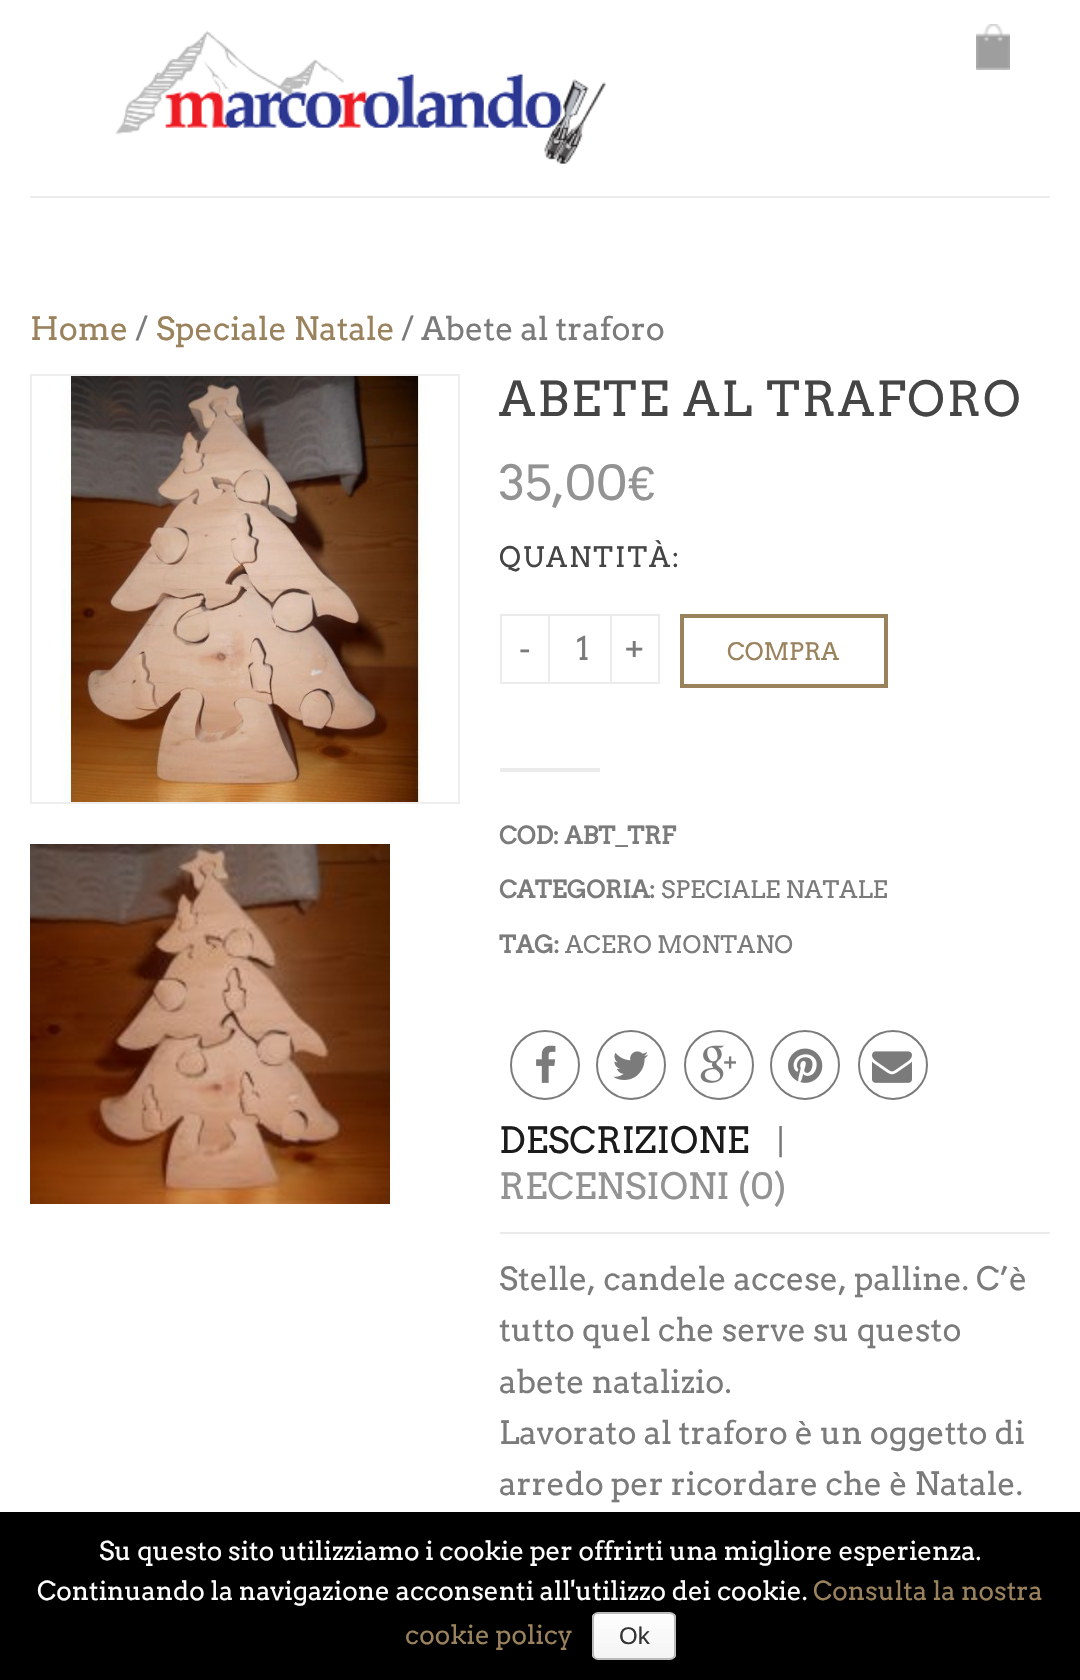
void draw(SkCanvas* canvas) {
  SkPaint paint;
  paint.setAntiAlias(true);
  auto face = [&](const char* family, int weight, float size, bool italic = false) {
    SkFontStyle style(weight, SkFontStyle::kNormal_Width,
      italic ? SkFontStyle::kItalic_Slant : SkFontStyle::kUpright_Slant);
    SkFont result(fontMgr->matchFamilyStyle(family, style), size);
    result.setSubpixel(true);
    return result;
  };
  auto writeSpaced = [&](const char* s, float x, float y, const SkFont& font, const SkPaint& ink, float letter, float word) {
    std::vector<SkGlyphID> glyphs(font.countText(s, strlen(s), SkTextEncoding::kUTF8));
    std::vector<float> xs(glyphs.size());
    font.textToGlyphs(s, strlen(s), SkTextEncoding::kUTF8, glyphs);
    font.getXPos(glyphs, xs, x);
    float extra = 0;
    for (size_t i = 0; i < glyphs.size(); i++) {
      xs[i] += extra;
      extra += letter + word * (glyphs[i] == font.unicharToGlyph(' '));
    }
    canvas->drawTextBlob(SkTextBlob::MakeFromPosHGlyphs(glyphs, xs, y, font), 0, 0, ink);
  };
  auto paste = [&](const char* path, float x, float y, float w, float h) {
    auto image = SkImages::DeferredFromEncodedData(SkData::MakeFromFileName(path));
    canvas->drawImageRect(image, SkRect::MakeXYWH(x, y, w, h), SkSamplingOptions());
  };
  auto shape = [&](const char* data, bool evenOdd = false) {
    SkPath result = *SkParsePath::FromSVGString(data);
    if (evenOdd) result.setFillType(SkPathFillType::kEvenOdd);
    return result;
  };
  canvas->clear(0xffffffff);
  paint.setColor(0xffebebeb);
  canvas->drawRect(SkRect::MakeXYWH(30, 196, 1020, 2), paint);
  paste("img/1.png", 115, 30, 491, 134);
  paste("img/2.png", 976, 24, 34, 46);
  paint.setStroke(true);
  paint.setStrokeWidth(2);
  paint.setColor(0xffeeeeee);
  canvas->drawRect(SkRect::MakeXYWH(31, 375, 428, 428), paint);
  paste("img/3.png", 60, 376, 367, 426);
  paste("img/4.png", 30, 844, 360, 360);
  paint.setColor(0xffebebeb);
  canvas->drawRect(SkRect::MakeXYWH(501, 615, 48, 68), paint);
  canvas->drawRect(SkRect::MakeXYWH(549, 615, 68, 68), paint);
  paint.setStroke(false);
  paint.setColor(0xffffffff);
  canvas->drawRect(SkRect::MakeXYWH(616, 616, 2, 66), paint);
  paint.setStroke(true);
  paint.setColor(0xffebebeb);
  canvas->drawRect(SkRect::MakeXYWH(611, 615, 48, 68), paint);
  paint.setStrokeWidth(4);
  paint.setColor(0xff9a825d);
  canvas->drawRect(SkRect::MakeXYWH(682, 616, 204, 70), paint);
  paint.setStroke(false);
  paint.setColor(0xffebebeb);
  canvas->drawRect(SkRect::MakeXYWH(500, 768, 100, 4), paint);
  paint.setStroke(true);
  paint.setStrokeWidth(2);
  paint.setColor(0xff7b7b7b);
  canvas->drawCircle(545, 1065, 34, paint);
  paste("img/5.png", 536, 1045, 20, 38);
  canvas->drawCircle(631, 1065, 34, paint);
  paste("img/6.png", 613, 1051, 35, 29);
  canvas->drawCircle(719, 1065, 34, paint);
  paste("img/7.png", 700, 1045, 36, 38);
  canvas->drawCircle(805, 1065, 34, paint);
  paste("img/8.png", 788, 1048, 35, 35);
  canvas->drawCircle(893, 1065, 34, paint);
  paste("img/9.png", 872, 1051, 40, 32);
  paint.setStroke(false);
  paint.setColor(0xffebebeb);
  canvas->drawRect(SkRect::MakeXYWH(500, 1232, 550, 2), paint);
  paint.setColor(0xff000000);
  canvas->drawRect(SkRect::MakeXYWH(0, 1512, 1080, 168), paint);
  canvas->save();
  canvas->clipPath(shape("M598 1612H670C673.5 1612 676 1614.5 676 1618V1654C676 1657.5 673.5 1660 670 1660H598C594.5 1660 592 1657.5 592 1654V1618C592 1614.5 594.5 1612 598 1612Z"), true);
  {
    const SkColor colors[] = {0xfffefefe, 0xfff4f4f4};
    const float stops[] = {0, 1};
    const SkPoint ends[] = {{634, 1614}, {634, 1658}};
    paint.setShader(SkGradientShader::MakeLinear(ends, colors, stops, 2, SkTileMode::kClamp));
    paint.setAlpha(255);
  }
  canvas->drawRect(SkRect::MakeXYWH(592, 1614, 84, 44), paint);
  canvas->restore();
  paint.setStroke(true);
  paint.setShader(nullptr);
  paint.setColor(0xffbbbbbb);
  canvas->drawRoundRect(SkRect::MakeXYWH(593, 1613, 82, 46), 5, 5, paint);
  auto f0 = face("Arvo", 400, 32);
  paint.setStroke(false);
  paint.setColor(0xff9a825d);
  canvas->drawString("Home", 30, 340, f0, paint);
  paint.setColor(0xff7b7b7b);
  canvas->drawString("/", 135, 340, f0, paint);
  paint.setColor(0xff9a825d);
  canvas->drawString("Speciale Natale", 156, 340, f0, paint);
  paint.setColor(0xff7b7b7b);
  canvas->drawString("/ Abete al traforo", 401, 340, f0, paint);
  auto f1 = face("Arvo", 400, 48);
  paint.setColor(0xff454545);
  writeSpaced("ABETE AL TRAFORO", 499, 416, f1, paint, 2, 0);
  paint.setColor(0xff939393);
  canvas->drawString("35,00", 499, 500, f1, paint);
  auto f2 = face("Liberation Sans", 400, 48);
  canvas->drawString("€", 628, 500, f2, paint);
  auto f3 = face("Arvo", 400, 28);
  paint.setColor(0xff454545);
  writeSpaced("QUANTITÀ:", 499, 567, f3, paint, 2, 0);
  paint.setColor(0xff7b7b7b);
  {
    const struct { const char* s; float x, y; } items[] = {
      {"-", 519, 660},
      {"1", 576, 660},
      {"+", 624, 660},
    };
    for (auto [s, x, y] : items) {
      canvas->drawString(s, x, y, f0, paint);
    }
  }
  auto f4 = face("Arvo", 400, 24);
  paint.setColor(0xff9a825d);
  canvas->drawString("COMPRA", 727, 660, f4, paint);
  auto f5 = face("Arvo", 700, 24);
  paint.setColor(0xff7b7b7b);
  canvas->drawString("COD: ABT_TRF", 499, 844, f5, paint);
  canvas->drawString("CATEGORIA:", 499, 898, f5, paint);
  canvas->drawString("SPECIALE NATALE", 661, 898, f4, paint);
  canvas->drawString("TAG:", 499, 953, f5, paint);
  canvas->drawString("ACERO MONTANO", 565, 953, f4, paint);
  auto f6 = face("Arvo", 400, 36);
  paint.setColor(0xff1b1b1b);
  canvas->drawString("DESCRIZIONE", 499, 1153, f6, paint);
  paint.setColor(0xff7b7b7b);
  canvas->drawString("|", 777, 1153, f0, paint);
  paint.setColor(0xff939393);
  canvas->drawString("RECENSIONI (0)", 499, 1199, f6, paint);
  paint.setColor(0xff7b7b7b);
  {
    const struct { const char* s; float x, y; } items[] = {
      {"Stelle, candele accese, palline. C’è", 499, 1290},
      {"tutto quel che serve su questo", 499, 1341},
      {"abete natalizio.", 499, 1393},
      {"Lavorato al traforo è un oggetto di", 499, 1444},
      {"arredo per ricordare che è Natale.", 499, 1495},
    };
    for (auto [s, x, y] : items) {
      canvas->drawString(s, x, y, f0, paint);
    }
  }
  auto f7 = face("Arvo", 400, 26);
  paint.setColor(0xffffffff);
  canvas->drawString("Su questo sito utilizziamo i cookie per offrirti una migliore esperienza.", 99, 1560, f7, paint);
  canvas->drawString("Continuando la navigazione acconsenti all'utilizzo dei cookie.", 37, 1600, f7, paint);
  paint.setColor(0xff9a825d);
  canvas->drawString("Consulta la nostra", 813, 1600, f7, paint);
  canvas->drawString("cookie policy", 405, 1644, f7, paint);
  auto f8 = face("Liberation Sans", 400, 24);
  paint.setColor(0xff333333);
  canvas->drawString("Ok", 619, 1644, f8, paint);
}
